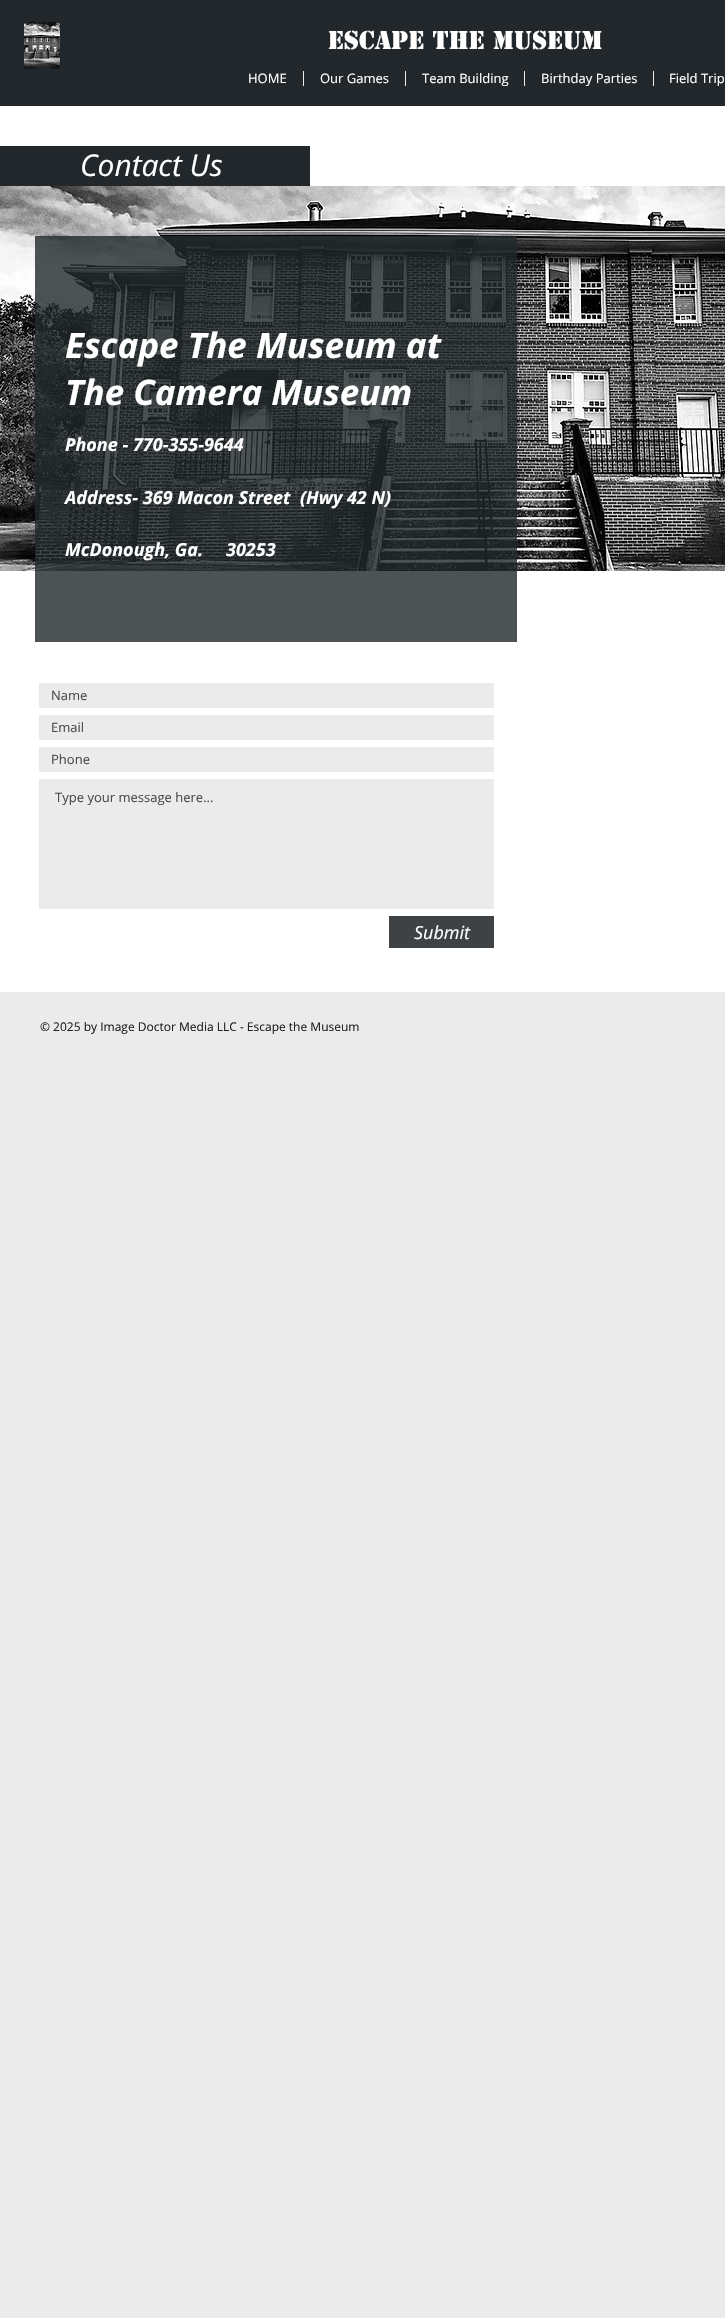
void draw(SkCanvas* canvas) {
  SkPaint paint;
  paint.setAntiAlias(true);
  auto face = [&](const char* family, int weight, float size, bool italic = false) {
    SkFontStyle style(weight, SkFontStyle::kNormal_Width,
      italic ? SkFontStyle::kItalic_Slant : SkFontStyle::kUpright_Slant);
    SkFont result(fontMgr->matchFamilyStyle(family, style), size);
    result.setSubpixel(true);
    return result;
  };
  auto paste = [&](const char* path, float x, float y, float w, float h) {
    auto image = SkImages::DeferredFromEncodedData(SkData::MakeFromFileName(path));
    canvas->drawImageRect(image, SkRect::MakeXYWH(x, y, w, h), SkSamplingOptions());
  };
  canvas->clear(0xffebebeb);
  paint.setColor(0xff21272b);
  canvas->drawRect(SkRect::MakeXYWH(0, 0, 725, 106), paint);
  paste("img/1.png", 24, 22, 36, 47);
  {
    const struct { float x, y, w, h; SkColor color; } items[] = {
      {303, 71, 1, 15, 0xffebebeb},
      {405, 71, 1, 15, 0xffebebeb},
      {524, 71, 1, 15, 0xffebebeb},
      {653, 71, 1, 15, 0xffebebeb},
      {0, 106, 725, 886, 0xffffffff},
      {0, 146, 310, 40, 0xff21272b},
    };
    for (auto [x, y, w, h, color] : items) {
      paint.setColor(color);
      canvas->drawRect(SkRect::MakeXYWH(x, y, w, h), paint);
    }
  }
  paste("img/2.png", 0, 186, 725, 385);
  {
    const struct { float x, y, w, h; SkColor color; } items[] = {
      {35, 236, 482, 406, 0xcc21272b},
      {39, 683, 455, 25, 0xffebebeb},
      {39, 715, 455, 25, 0xffebebeb},
      {39, 747, 455, 25, 0xffebebeb},
      {39, 779, 455, 130, 0xffebebeb},
      {389, 916, 105, 32, 0xff3f4244},
    };
    for (auto [x, y, w, h, color] : items) {
      paint.setColor(color);
      canvas->drawRect(SkRect::MakeXYWH(x, y, w, h), paint);
    }
  }
  auto f0 = face("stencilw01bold", 700, 24);
  paint.setColor(0xffffffff);
  canvas->drawString("Escape the Museum", 328, 49, f0, paint);
  auto f1 = face("Open Sans", 400, 13);
  {
    const struct { const char* s; float x, y; } items[] = {
      {"HOME", 248, 83},
      {"Our Games", 320, 83},
      {"Team Building", 422, 83},
      {"Birthday Parties", 541, 83},
      {"Field Trip", 669, 83},
    };
    for (auto [s, x, y] : items) {
      canvas->drawString(s, x, y, f1, paint);
    }
  }
  auto f2 = face("Open Sans", 400, 30, true);
  canvas->drawString("Contact Us", 80, 176, f2, paint);
  auto f3 = face("Open Sans", 700, 35, true);
  canvas->drawString("Escape The Museum at", 65, 358, f3, paint);
  canvas->drawString("The Camera Museum", 65, 405, f3, paint);
  auto f4 = face("Open Sans", 700, 18, true);
  {
    const struct { const char* s; float x, y; } items[] = {
      {"Phone - 770-355-9644", 65, 451},
      {"Address- 369 Macon Street", 65, 504},
      {"(Hwy 42 N)", 300, 504},
      {"McDonough, Ga.", 65, 556},
      {"30253", 226, 556},
    };
    for (auto [s, x, y] : items) {
      canvas->drawString(s, x, y, f4, paint);
    }
  }
  paint.setColor(0xff484c4f);
  {
    const struct { const char* s; float x, y; } items[] = {
      {"Name", 51, 700},
      {"Email", 51, 732},
      {"Phone", 51, 764},
      {"Type your message here...", 55, 802},
    };
    for (auto [s, x, y] : items) {
      canvas->drawString(s, x, y, f1, paint);
    }
  }
  auto f5 = face("Open Sans", 400, 18, true);
  paint.setColor(0xffffffff);
  canvas->drawString("Submit", 414, 939, f5, paint);
  auto f6 = face("Open Sans", 400, 12);
  paint.setColor(0xff1d2123);
  canvas->drawString("© 2025 by Image Doctor Media LLC - Escape the Museum", 40, 1031, f6, paint);
}
